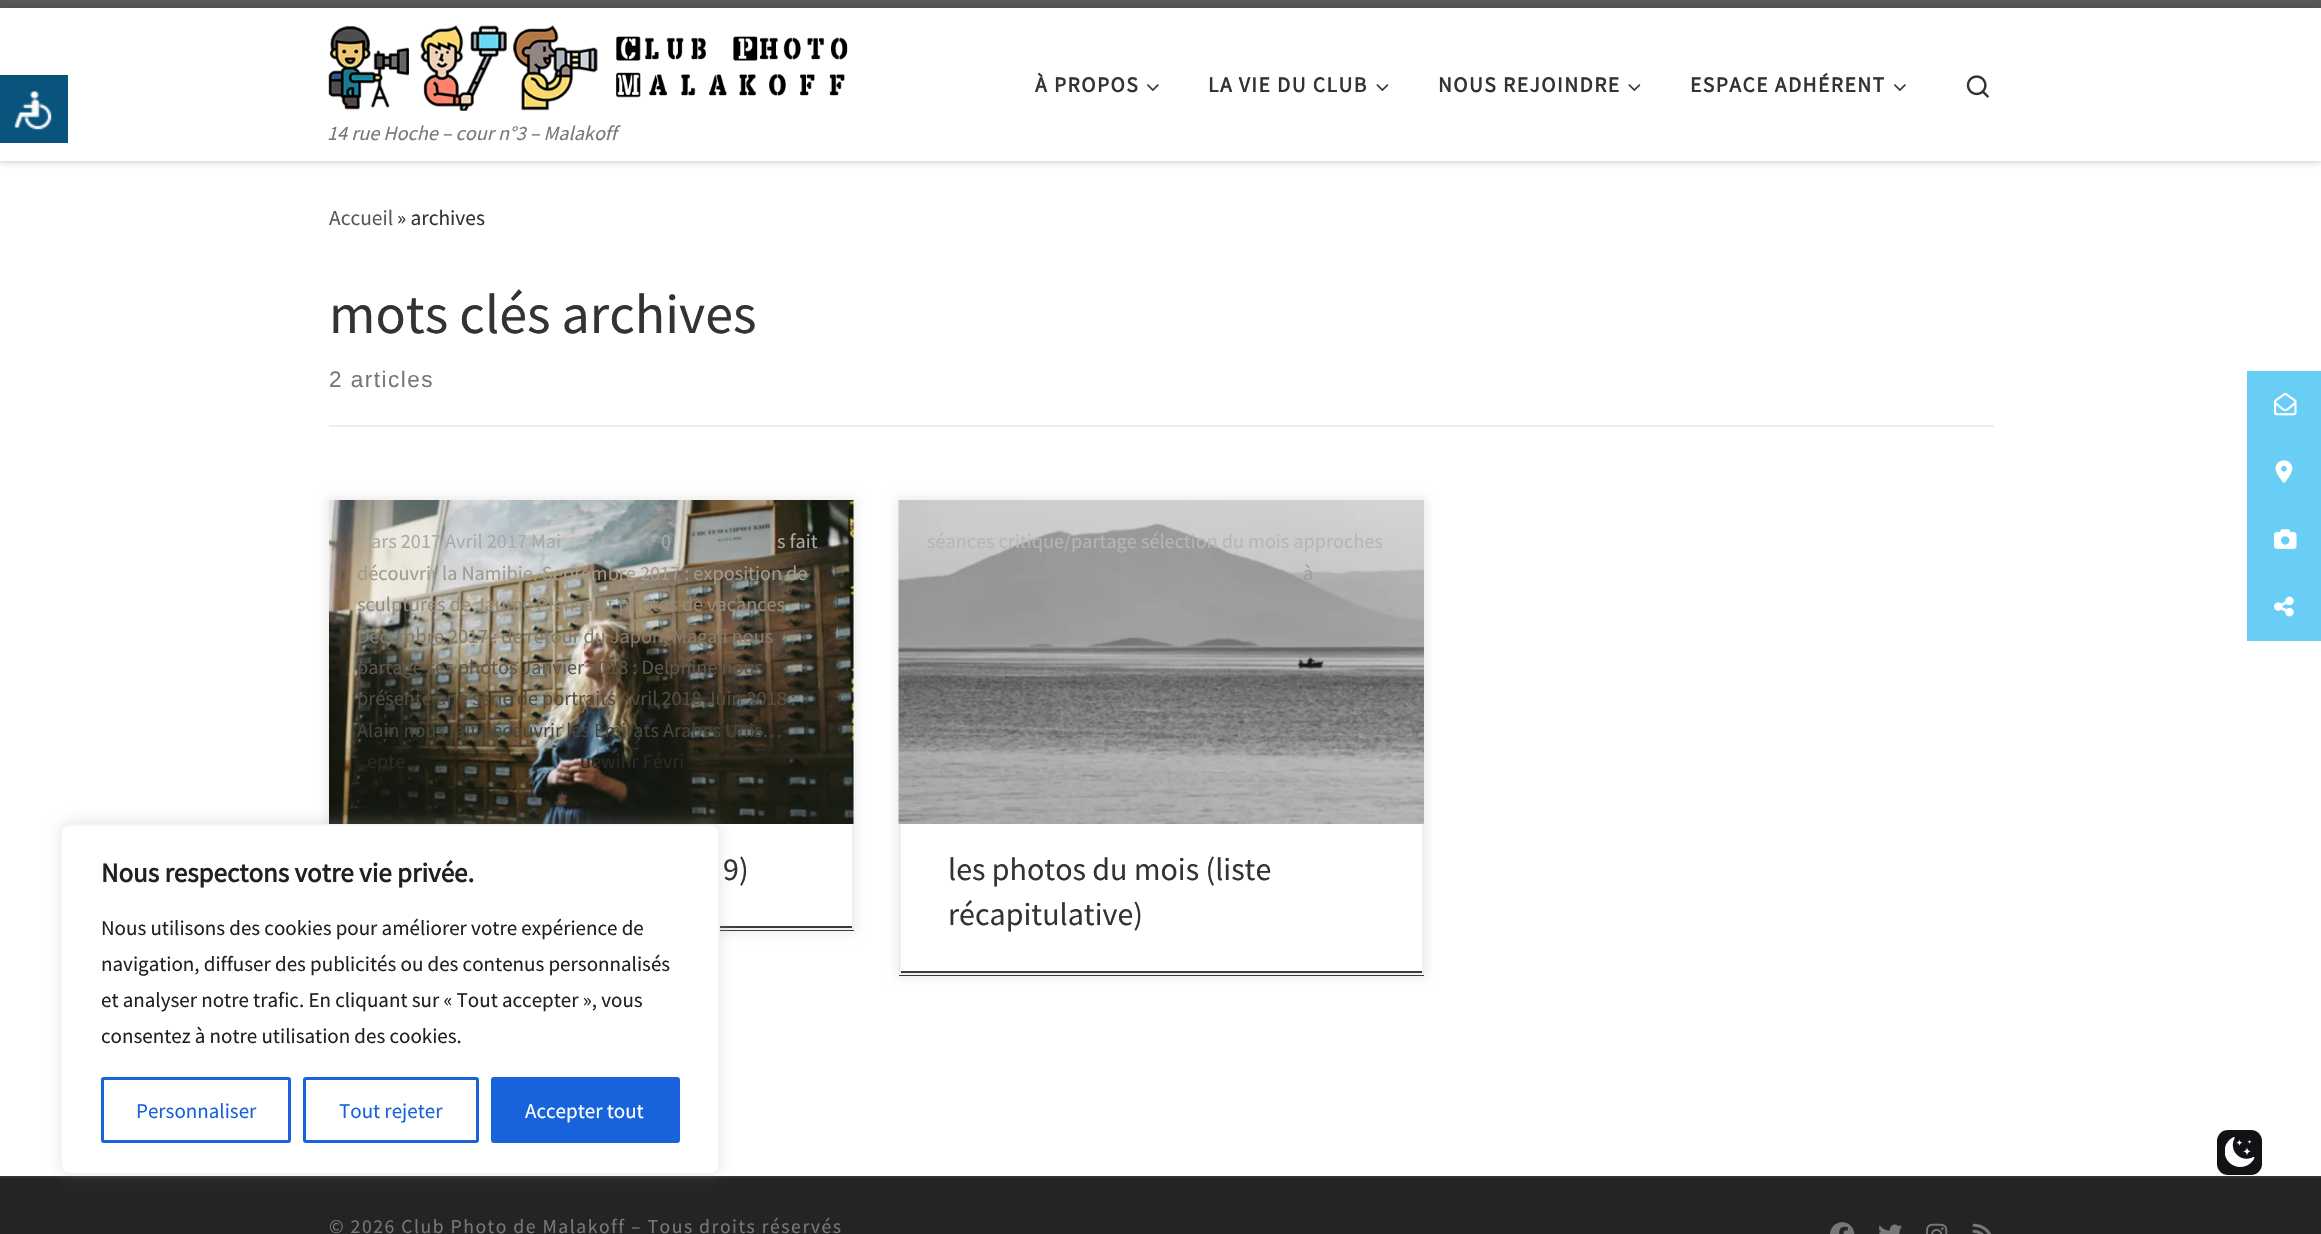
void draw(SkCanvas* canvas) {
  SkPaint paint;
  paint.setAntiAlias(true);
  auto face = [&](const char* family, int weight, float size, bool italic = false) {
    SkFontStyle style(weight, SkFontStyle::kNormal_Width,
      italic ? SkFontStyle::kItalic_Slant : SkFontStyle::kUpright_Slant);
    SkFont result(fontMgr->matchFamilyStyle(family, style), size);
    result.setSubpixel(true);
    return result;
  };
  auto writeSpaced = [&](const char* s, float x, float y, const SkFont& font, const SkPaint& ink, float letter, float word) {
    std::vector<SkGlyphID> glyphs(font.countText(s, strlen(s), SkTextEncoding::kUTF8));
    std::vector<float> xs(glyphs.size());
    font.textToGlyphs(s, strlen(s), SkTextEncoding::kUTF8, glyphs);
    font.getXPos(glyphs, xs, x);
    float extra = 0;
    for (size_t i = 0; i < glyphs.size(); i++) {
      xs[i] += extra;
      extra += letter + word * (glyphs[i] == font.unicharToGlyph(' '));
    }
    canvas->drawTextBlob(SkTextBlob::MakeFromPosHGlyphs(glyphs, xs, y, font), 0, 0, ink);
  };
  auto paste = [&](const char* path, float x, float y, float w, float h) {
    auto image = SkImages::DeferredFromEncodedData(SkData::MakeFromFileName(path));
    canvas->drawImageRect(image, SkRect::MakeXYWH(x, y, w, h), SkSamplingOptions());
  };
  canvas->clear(0xffffffff);
  paint.setColor(0x14666666);
  paint.setMaskFilter(SkMaskFilter::MakeBlur(kNormal_SkBlurStyle, 1.5f));
  canvas->drawRect(SkRect::MakeXYWH(0, 3, 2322, 159), paint);
  paint.setMaskFilter(nullptr);
  paint.setColor(0xff5a5a5a);
  canvas->drawRect(SkRect::MakeXYWH(0, 0, 2321, 8), paint);
  paint.setColor(0x33000000);
  paint.setMaskFilter(SkMaskFilter::MakeBlur(kNormal_SkBlurStyle, 4));
  canvas->drawRect(SkRect::MakeXYWH(0, 8, 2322, 153), paint);
  paint.setMaskFilter(nullptr);
  paint.setColor(0xffffffff);
  canvas->drawRect(SkRect::MakeXYWH(0, 8, 2321, 153), paint);
  paint.setColor(0xff09547c);
  canvas->drawRect(SkRect::MakeXYWH(0, 75, 68, 68), paint);
  paste("img/1.png", 14, 91, 38, 39);
  paste("img/2.png", 1147, 84, 12, 7);
  paste("img/3.png", 1376, 84, 13, 7);
  paste("img/3.png", 1628, 84, 13, 7);
  paste("img/2.png", 1894, 84, 12, 7);
  paste("img/4.png", 1966, 75, 24, 23);
  paste("img/5.png", 328, 25, 520, 86);
  paint.setColor(0xffeceeef);
  canvas->drawRect(SkRect::MakeXYWH(329, 425, 1665, 2), paint);
  paint.setColor(0x12000000);
  paint.setMaskFilter(SkMaskFilter::MakeBlur(kNormal_SkBlurStyle, 4.5f));
  canvas->drawRect(SkRect::MakeXYWH(326, 497, 531, 436), paint);
  paint.setMaskFilter(nullptr);
  paint.setColor(0xffffffff);
  canvas->drawRect(SkRect::MakeXYWH(711, 824, 141, 102), paint);
  paint.setColor(0xff3b3b3b);
  canvas->drawRect(SkRect::MakeXYWH(720, 926, 134, 5), paint);
  paint.setStroke(true);
  paint.setStrokeWidth(2);
  paint.setColor(0xffefefef);
  canvas->drawRect(SkRect::MakeXYWH(330, 501, 523, 428), paint);
  paste("img/6.png", 329, 500, 525, 324);
  paint.setStroke(false);
  paint.setColor(0x12000000);
  paint.setMaskFilter(SkMaskFilter::MakeBlur(kNormal_SkBlurStyle, 4.5f));
  canvas->drawRect(SkRect::MakeXYWH(896, 497, 531, 481), paint);
  paint.setMaskFilter(nullptr);
  paint.setColor(0xffffffff);
  canvas->drawRect(SkRect::MakeXYWH(901, 824, 521, 147), paint);
  paint.setColor(0xff3b3b3b);
  canvas->drawRect(SkRect::MakeXYWH(899, 971, 525, 5), paint);
  paint.setStroke(true);
  paint.setColor(0xffefefef);
  canvas->drawRect(SkRect::MakeXYWH(900, 501, 523, 473), paint);
  paste("img/7.png", 898, 500, 526, 324);
  paint.setStroke(false);
  paint.setColor(0xff313131);
  canvas->drawRect(SkRect::MakeXYWH(0, 1176, 2321, 2), paint);
  paint.setColor(0xff242424);
  canvas->drawRect(SkRect::MakeXYWH(0, 1178, 2321, 56), paint);
  paste("img/8.png", 1830, 1222, 25, 12);
  paste("img/9.png", 1879, 1224, 23, 10);
  paste("img/10.png", 1926, 1223, 22, 11);
  paste("img/11.png", 1972, 1223, 20, 11);
  paint.setColor(0xff68cef6);
  canvas->drawRect(SkRect::MakeXYWH(2247, 371, 74, 270), paint);
  paste("img/12.png", 2274, 392, 23, 24);
  paste("img/13.png", 2275, 460, 18, 23);
  paste("img/14.png", 2274, 529, 23, 20);
  paste("img/15.png", 2274, 596, 20, 21);
  paint.setColor(0x4dacabab);
  paint.setMaskFilter(SkMaskFilter::MakeBlur(kNormal_SkBlurStyle, 7.5f));
  canvas->drawRoundRect(SkRect::MakeXYWH(60, 822, 660, 351), 9, 9, paint);
  paint.setMaskFilter(nullptr);
  paint.setColor(0xffffffff);
  canvas->drawRoundRect(SkRect::MakeXYWH(61, 825, 658, 349), 8, 8, paint);
  paint.setStroke(true);
  paint.setColor(0xfff4f4f4);
  canvas->drawRoundRect(SkRect::MakeXYWH(61, 825, 658, 349), 8, 8, paint);
  paint.setStrokeWidth(3);
  paint.setColor(0xff1863dc);
  canvas->drawRoundRect(SkRect::MakeXYWH(102.5f, 1078.5f, 187, 63), 1.5f, 1.5f, paint);
  canvas->drawRoundRect(SkRect::MakeXYWH(304.5f, 1078.5f, 173, 63), 1.5f, 1.5f, paint);
  paint.setStroke(false);
  canvas->drawRoundRect(SkRect::MakeXYWH(492.5f, 1078.5f, 186, 63), 1.5f, 1.5f, paint);
  paint.setStroke(true);
  canvas->drawRoundRect(SkRect::MakeXYWH(492.5f, 1078.5f, 186, 63), 1.5f, 1.5f, paint);
  paint.setStroke(false);
  paint.setColor(0xff121116);
  canvas->drawRoundRect(SkRect::MakeXYWH(2217, 1130, 45, 45), 11, 11, paint);
  paste("img/16.png", 2225, 1137, 30, 30);
  auto f0 = face("Source Sans Pro", 700, 21.4f);
  paint.setColor(0xff333333);
  {
    const struct { const char* s; float x, y; } items[] = {
      {"À PROPOS", 1035, 92},
      {"LA VIE DU CLUB", 1208, 92},
      {"NOUS REJOINDRE", 1438, 92},
      {"ESPACE ADHÉRENT", 1690, 92},
    };
    for (auto [s, x, y] : items) {
      writeSpaced(s, x, y, f0, paint, 1.5f, 0);
    }
  }
  auto f1 = face("Source Sans Pro", 400, 20.25f, true);
  paint.setColor(0xff777777);
  canvas->drawString("14 rue Hoche – cour n°3 – Malakoff", 327, 140, f1, paint);
  auto f2 = face("Source Sans Pro", 400, 21.4f);
  paint.setColor(0xff5a5a5a);
  canvas->drawString("Accueil", 329, 225, f2, paint);
  paint.setColor(0xff333333);
  canvas->drawString("» archives", 397, 225, f2, paint);
  auto f3 = face("Source Sans Pro", 400, 56);
  canvas->drawString("mots clés archives", 329, 333, f3, paint);
  auto f4 = face("Liberation Sans", 400, 22.5f);
  paint.setColor(0xff777777);
  writeSpaced("2 articles", 329, 387, f4, paint, 1.5f, 0);
  auto f5 = face("Source Sans Pro", 400, 20.25f);
  paint.setColor(0xffa8aba7);
  {
    const struct { const char* s; float x, y; } items[] = {
      {"ars 2017 Avril 2017 Mai", 371, 548},
      {"0", 661, 548},
      {"s fait", 777, 548},
    };
    for (auto [s, x, y] : items) {
      canvas->drawString(s, x, y, f5, paint);
    }
  }
  paint.setColor(0xffa19a8d);
  canvas->drawString("découvrir la Namibie. Septembre 2017 : exposition de", 357, 580, f5, paint);
  paint.setColor(0xff958b7a);
  canvas->drawString("sculptures de Jaume Plensa et photos de vacances", 357, 611, f5, paint);
  paint.setColor(0xff847b6b);
  canvas->drawString("Décembre 2017 : de retour du Japon, Magali nous", 357, 643, f5, paint);
  paint.setColor(0xff5f5849);
  canvas->drawString("partage ses photos Janvier 2018 : Delphine nous", 357, 674, f5, paint);
  paint.setColor(0xff544d3e);
  canvas->drawString("présente une série de portraits Avril 2018 Juin 2018 :", 357, 705, f5, paint);
  paint.setColor(0xff47463c);
  canvas->drawString("Alain nous fait découvrir les Émirats Arabes Unis…", 357, 737, f5, paint);
  paint.setColor(0xff2c2a21);
  canvas->drawString("epte", 367, 768, f5, paint);
  canvas->drawString("uewihr Févri", 580, 768, f5, paint);
  auto f6 = face("Source Sans Pro", 400, 32);
  paint.setColor(0xff333333);
  canvas->drawString("9)", 723, 880, f6, paint);
  paint.setColor(0xffb6b6b6);
  canvas->drawString("séances critique/partage sélection du mois approches", 927, 548, f5, paint);
  paint.setColor(0xff9e9e9e);
  canvas->drawString("à", 1303, 580, f5, paint);
  paint.setColor(0xff333333);
  canvas->drawString("les photos du mois (liste", 948, 880, f6, paint);
  canvas->drawString("récapitulative)", 948, 925, f6, paint);
  auto f7 = face("Source Sans Pro", 400, 19.7f);
  paint.setColor(0xff777777);
  writeSpaced("© 2026 Club Photo de Malakoff – Tous droits réservés", 329, 1233, f7, paint, 1.5f, 0);
  auto f8 = face("Source Sans Pro", 700, 27);
  paint.setColor(0xff212121);
  canvas->drawString("Nous respectons votre vie privée.", 101, 882, f8, paint);
  auto f9 = face("Source Sans Pro", 400, 21);
  {
    const struct { const char* s; float x, y; } items[] = {
      {"Nous utilisons des cookies pour améliorer votre expérience de", 101, 935},
      {"navigation, diffuser des publicités ou des contenus personnalisés", 101, 971},
      {"et analyser notre trafic. En cliquant sur « Tout accepter », vous", 101, 1007},
      {"consentez à notre utilisation des cookies.", 101, 1043},
    };
    for (auto [s, x, y] : items) {
      canvas->drawString(s, x, y, f9, paint);
    }
  }
  paint.setColor(0xff1863dc);
  canvas->drawString("Personnaliser", 136, 1118, f9, paint);
  canvas->drawString("Tout rejeter", 339, 1118, f9, paint);
  paint.setColor(0xffffffff);
  canvas->drawString("Accepter tout", 525, 1118, f9, paint);
}
